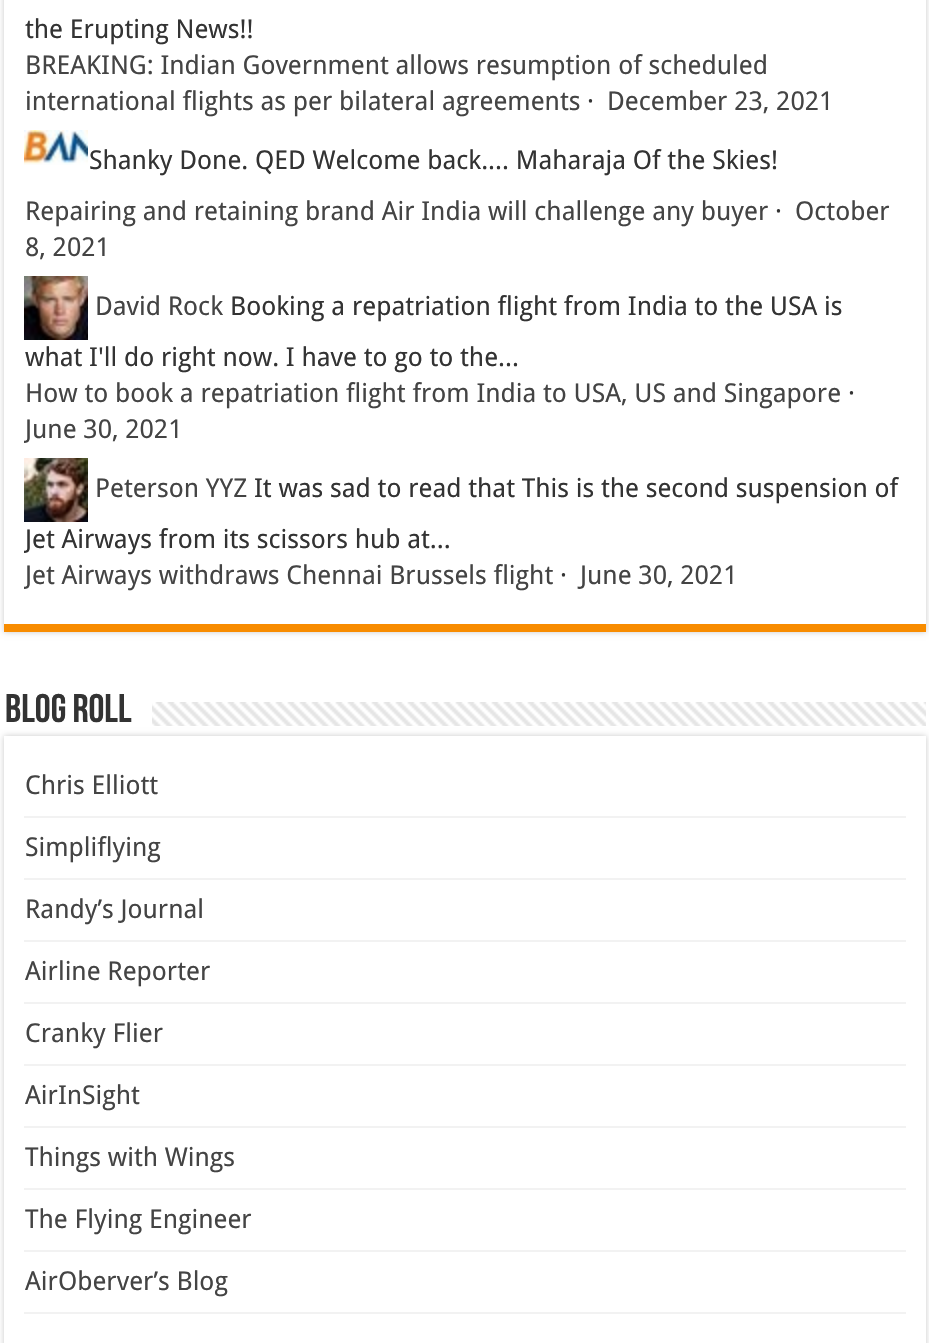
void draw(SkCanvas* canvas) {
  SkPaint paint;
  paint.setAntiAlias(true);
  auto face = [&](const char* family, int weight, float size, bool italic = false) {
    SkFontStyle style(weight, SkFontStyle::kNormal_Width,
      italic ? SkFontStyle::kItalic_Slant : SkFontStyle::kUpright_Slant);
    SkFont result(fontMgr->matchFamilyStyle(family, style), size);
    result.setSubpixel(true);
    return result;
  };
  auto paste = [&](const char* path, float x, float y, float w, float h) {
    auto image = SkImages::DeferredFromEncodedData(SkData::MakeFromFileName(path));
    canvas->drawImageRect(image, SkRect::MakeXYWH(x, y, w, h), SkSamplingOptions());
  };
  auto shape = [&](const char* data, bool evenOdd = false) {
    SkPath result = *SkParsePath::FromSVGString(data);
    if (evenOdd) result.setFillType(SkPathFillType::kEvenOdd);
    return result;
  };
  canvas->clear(0xffffffff);
  canvas->save();
  canvas->clipPath(shape("M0 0H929V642H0ZM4-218H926V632H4Z", true), true);
  paint.setColor(0xffcacaca);
  paint.setMaskFilter(SkMaskFilter::MakeBlur(kNormal_SkBlurStyle, 3));
  canvas->drawRect(SkRect::MakeXYWH(4, -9, 922, 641), paint);
  paint.setMaskFilter(nullptr);
  canvas->restore();
  paint.setColor(0xfff88c00);
  canvas->drawRect(SkRect::MakeXYWH(4, 624, 922, 8), paint);
  paste("img/1.png", 24, 130, 64, 35);
  paste("img/2.png", 24, 276, 64, 64);
  paste("img/3.png", 24, 458, 64, 64);
  paste("img/4.png", 152, 702, 774, 24);
  canvas->save();
  canvas->clipPath(shape("M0 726H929V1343H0ZM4 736H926V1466H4Z", true), true);
  paint.setColor(0xffcacaca);
  paint.setMaskFilter(SkMaskFilter::MakeBlur(kNormal_SkBlurStyle, 3));
  canvas->drawRect(SkRect::MakeXYWH(4, 736, 922, 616), paint);
  paint.setMaskFilter(nullptr);
  canvas->restore();
  {
    const struct { float x, y, w, h; SkColor color; } items[] = {
      {24, 816, 882, 2, 0xfff2f2f2},
      {24, 878, 882, 2, 0xfff2f2f2},
      {24, 940, 882, 2, 0xfff2f2f2},
      {24, 1002, 882, 2, 0xfff2f2f2},
      {24, 1064, 882, 2, 0xfff2f2f2},
      {24, 1126, 882, 2, 0xfff2f2f2},
      {24, 1188, 882, 2, 0xfff2f2f2},
      {24, 1250, 882, 2, 0xfff2f2f2},
      {24, 1312, 882, 2, 0xfff2f2f2},
    };
    for (auto [x, y, w, h, color] : items) {
      paint.setColor(color);
      canvas->drawRect(SkRect::MakeXYWH(x, y, w, h), paint);
    }
  }
  auto f0 = face("Droid Sans", 400, 26);
  paint.setColor(0xff333333);
  canvas->drawString("the Erupting News!!", 25, 38, f0, paint);
  paint.setColor(0xff444444);
  canvas->drawString("BREAKING: Indian Government allows resumption of scheduled", 25, 74, f0, paint);
  canvas->drawString("international flights as per bilateral agreements", 25, 110, f0, paint);
  paint.setColor(0xff333333);
  canvas->drawString("·", 587, 110, f0, paint);
  paint.setColor(0xff444444);
  canvas->drawString("December 23, 2021", 607, 110, f0, paint);
  paint.setColor(0xff333333);
  canvas->drawString("Shanky Done. QED Welcome back.... Maharaja Of the Skies!", 89, 169, f0, paint);
  paint.setColor(0xff444444);
  canvas->drawString("Repairing and retaining brand Air India will challenge any buyer", 25, 220, f0, paint);
  paint.setColor(0xff333333);
  canvas->drawString("·", 775, 220, f0, paint);
  paint.setColor(0xff444444);
  {
    const struct { const char* s; float x, y; } items[] = {
      {"October", 795, 220},
      {"8, 2021", 25, 256},
      {"David Rock", 95, 315},
    };
    for (auto [s, x, y] : items) {
      canvas->drawString(s, x, y, f0, paint);
    }
  }
  paint.setColor(0xff333333);
  canvas->drawString("Booking a repatriation flight from India to the USA is", 230, 315, f0, paint);
  canvas->drawString("what I'll do right now. I have to go to the...", 25, 366, f0, paint);
  paint.setColor(0xff444444);
  canvas->drawString("How to book a repatriation flight from India to USA, US and Singapore", 25, 402, f0, paint);
  paint.setColor(0xff333333);
  canvas->drawString("·", 848, 402, f0, paint);
  canvas->save();
  canvas->clipRect(SkRect::MakeXYWH(24, 276, 882, 182));
  paint.setColor(0xff444444);
  canvas->drawString("June 30, 2021", 25, 438, f0, paint);
  canvas->restore();
  canvas->drawString("Peterson YYZ", 95, 497, f0, paint);
  paint.setColor(0xff333333);
  canvas->drawString("It was sad to read that This is the second suspension of", 254, 497, f0, paint);
  canvas->save();
  canvas->clipRect(SkRect::MakeXYWH(24, 458, 882, 146));
  canvas->drawString("Jet Airways from its scissors hub at...", 25, 548, f0, paint);
  paint.setColor(0xff444444);
  canvas->drawString("Jet Airways withdraws Chennai Brussels flight", 25, 584, f0, paint);
  canvas->restore();
  paint.setColor(0xff333333);
  canvas->drawString("·", 560, 584, f0, paint);
  paint.setColor(0xff444444);
  canvas->drawString("June 30, 2021", 580, 584, f0, paint);
  auto f1 = face("Bebas Neue", 700, 40);
  paint.setColor(0xff333333);
  canvas->drawString("Blog Roll", 5, 722, f1, paint);
  paint.setColor(0xff444444);
  {
    const struct { const char* s; float x, y; } items[] = {
      {"Chris Elliott", 25, 794},
      {"Simpliflying", 25, 856},
      {"Randy’s Journal", 25, 918},
      {"Airline Reporter", 25, 980},
      {"Cranky Flier", 25, 1042},
      {"AirInSight", 25, 1104},
      {"Things with Wings", 25, 1166},
      {"The Flying Engineer", 25, 1228},
      {"AirOberver’s Blog", 25, 1290},
    };
    for (auto [s, x, y] : items) {
      canvas->drawString(s, x, y, f0, paint);
    }
  }
}
